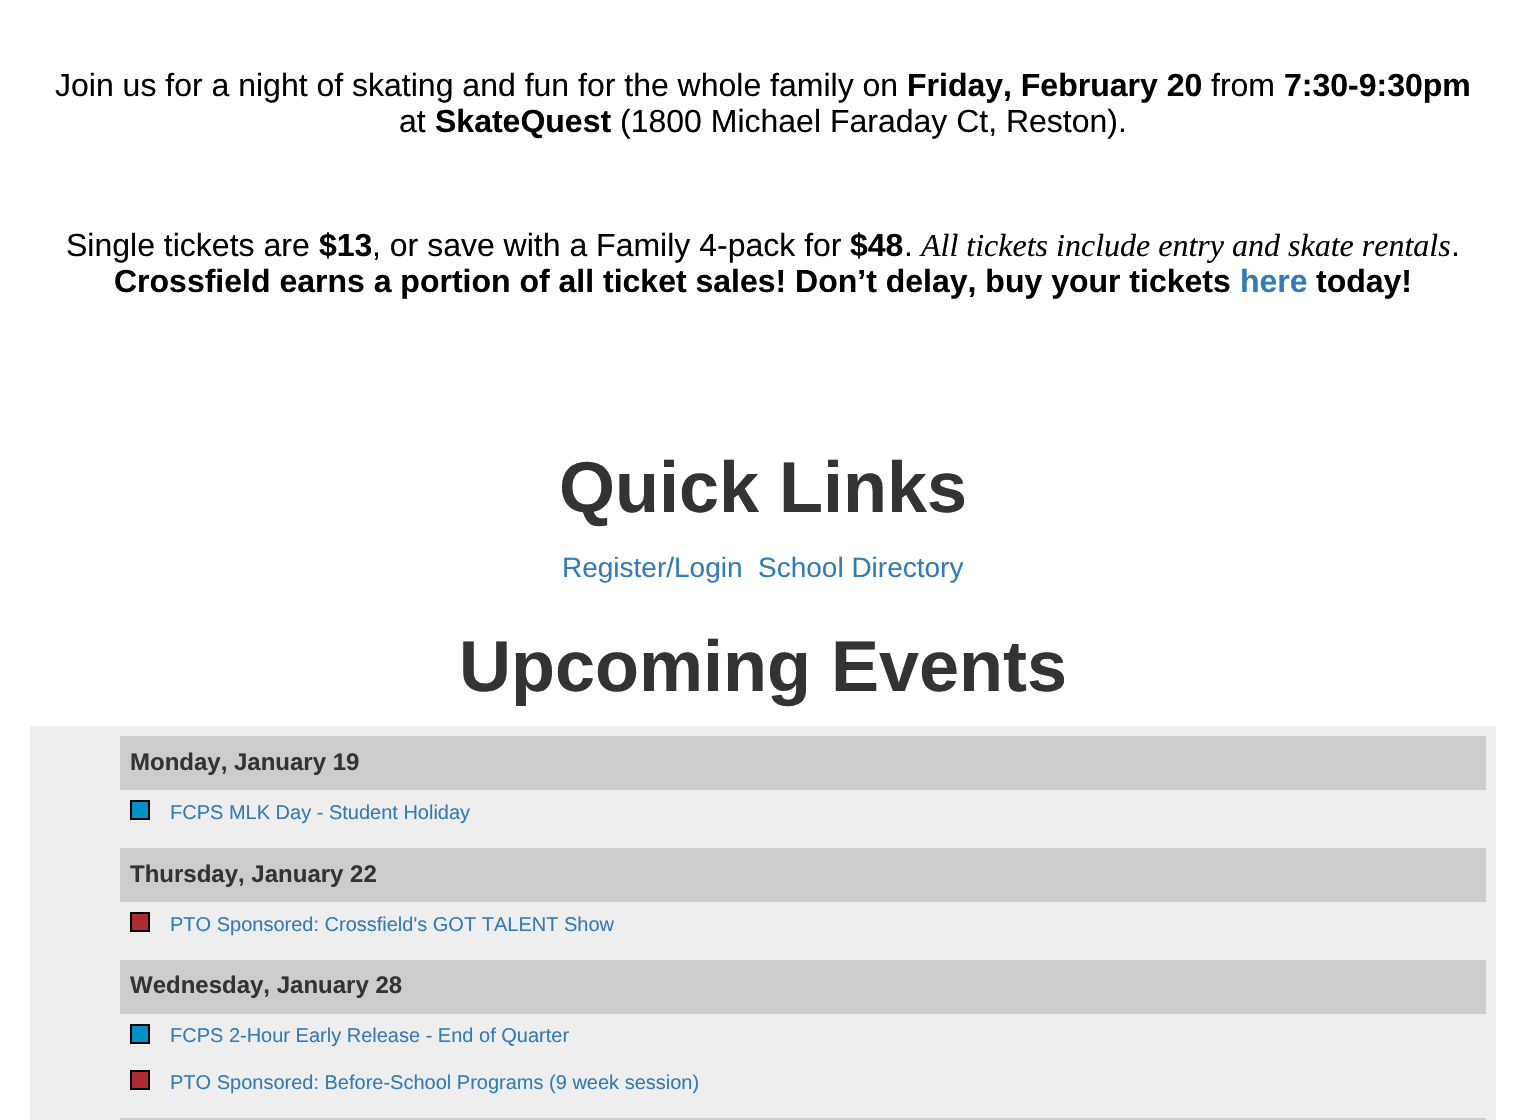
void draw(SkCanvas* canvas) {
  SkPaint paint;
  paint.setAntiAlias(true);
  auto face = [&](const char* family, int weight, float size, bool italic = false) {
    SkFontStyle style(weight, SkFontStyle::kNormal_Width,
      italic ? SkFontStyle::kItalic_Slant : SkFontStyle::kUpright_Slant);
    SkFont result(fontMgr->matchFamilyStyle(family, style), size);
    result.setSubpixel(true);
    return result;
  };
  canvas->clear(0xffffffff);
  paint.setColor(0xffeeeeee);
  canvas->drawRect(SkRect::MakeXYWH(30, 726, 1466, 394), paint);
  paint.setColor(0xffcccccc);
  canvas->drawRect(SkRect::MakeXYWH(120, 736, 1366, 54), paint);
  paint.setColor(0xff0192c6);
  canvas->drawRect(SkRect::MakeXYWH(131, 801, 18, 18), paint);
  paint.setStroke(true);
  paint.setStrokeWidth(2);
  paint.setColor(0xff000000);
  canvas->drawRect(SkRect::MakeXYWH(131, 801, 18, 18), paint);
  paint.setStroke(false);
  paint.setColor(0xffcccccc);
  canvas->drawRect(SkRect::MakeXYWH(120, 848, 1366, 54), paint);
  paint.setColor(0xffad2c34);
  canvas->drawRect(SkRect::MakeXYWH(131, 913, 18, 18), paint);
  paint.setStroke(true);
  paint.setColor(0xff000000);
  canvas->drawRect(SkRect::MakeXYWH(131, 913, 18, 18), paint);
  paint.setStroke(false);
  paint.setColor(0xffcccccc);
  canvas->drawRect(SkRect::MakeXYWH(120, 960, 1366, 54), paint);
  paint.setColor(0xff0192c6);
  canvas->drawRect(SkRect::MakeXYWH(131, 1025, 18, 18), paint);
  paint.setStroke(true);
  paint.setColor(0xff000000);
  canvas->drawRect(SkRect::MakeXYWH(131, 1025, 18, 18), paint);
  paint.setStroke(false);
  paint.setColor(0xffad2c34);
  canvas->drawRect(SkRect::MakeXYWH(131, 1071, 18, 18), paint);
  paint.setStroke(true);
  paint.setColor(0xff000000);
  canvas->drawRect(SkRect::MakeXYWH(131, 1071, 18, 18), paint);
  paint.setStroke(false);
  paint.setColor(0xffcccccc);
  canvas->drawRect(SkRect::MakeXYWH(120, 1118, 1366, 2), paint);
  auto f0 = face("Liberation Sans", 400, 32);
  paint.setColor(0xff000000);
  canvas->drawString("Join us for a night of skating and fun for the whole family on", 55, 96, f0, paint);
  auto f1 = face("Liberation Sans", 700, 32);
  canvas->drawString("Friday, February 20", 907, 96, f1, paint);
  canvas->drawString("from", 1211, 96, f0, paint);
  canvas->drawString("7:30-9:30pm", 1284, 96, f1, paint);
  canvas->drawString("at", 399, 132, f0, paint);
  canvas->drawString("SkateQuest", 435, 132, f1, paint);
  canvas->drawString("(1800 Michael Faraday Ct, Reston).", 620, 132, f0, paint);
  canvas->drawString("Single tickets are", 66, 256, f0, paint);
  canvas->drawString("$13", 319, 256, f1, paint);
  canvas->drawString(", or save with a Family 4-pack for", 372, 256, f0, paint);
  canvas->drawString("$48", 850, 256, f1, paint);
  canvas->drawString(".", 904, 256, f0, paint);
  auto f2 = face("Liberation Serif", 400, 32, true);
  canvas->drawString("All tickets include entry and skate rentals", 921, 256, f2, paint);
  canvas->drawString(".", 1451, 256, f0, paint);
  canvas->drawString("Crossfield earns a portion of all ticket sales! Don’t delay, buy your tickets", 114, 292, f1, paint);
  paint.setColor(0xff337ab7);
  canvas->drawString("here", 1240, 292, f1, paint);
  paint.setColor(0xff000000);
  canvas->drawString("today!", 1316, 292, f1, paint);
  auto f3 = face("Liberation Sans", 700, 72);
  paint.setColor(0xff333333);
  canvas->drawString("Quick Links", 559, 512, f3, paint);
  auto f4 = face("Liberation Sans", 400, 28);
  paint.setColor(0xff337ab7);
  canvas->drawString("Register/Login", 562, 577, f4, paint);
  canvas->drawString("School Directory", 758, 577, f4, paint);
  paint.setColor(0xff333333);
  canvas->drawString("Upcoming Events", 459, 691, f3, paint);
  auto f5 = face("Liberation Sans", 700, 24);
  canvas->drawString("Monday, January 19", 130, 770, f5, paint);
  auto f6 = face("Liberation Sans", 400, 20);
  paint.setColor(0xff337ab7);
  canvas->drawString("FCPS MLK Day - Student Holiday", 170, 819, f6, paint);
  paint.setColor(0xff333333);
  canvas->drawString("Thursday, January 22", 130, 882, f5, paint);
  paint.setColor(0xff337ab7);
  canvas->drawString("PTO Sponsored: Crossfield's GOT TALENT Show", 170, 931, f6, paint);
  paint.setColor(0xff333333);
  canvas->drawString("Wednesday, January 28", 130, 993, f5, paint);
  paint.setColor(0xff337ab7);
  canvas->drawString("FCPS 2-Hour Early Release - End of Quarter", 170, 1042, f6, paint);
  canvas->drawString("PTO Sponsored: Before-School Programs (9 week session)", 170, 1089, f6, paint);
}
